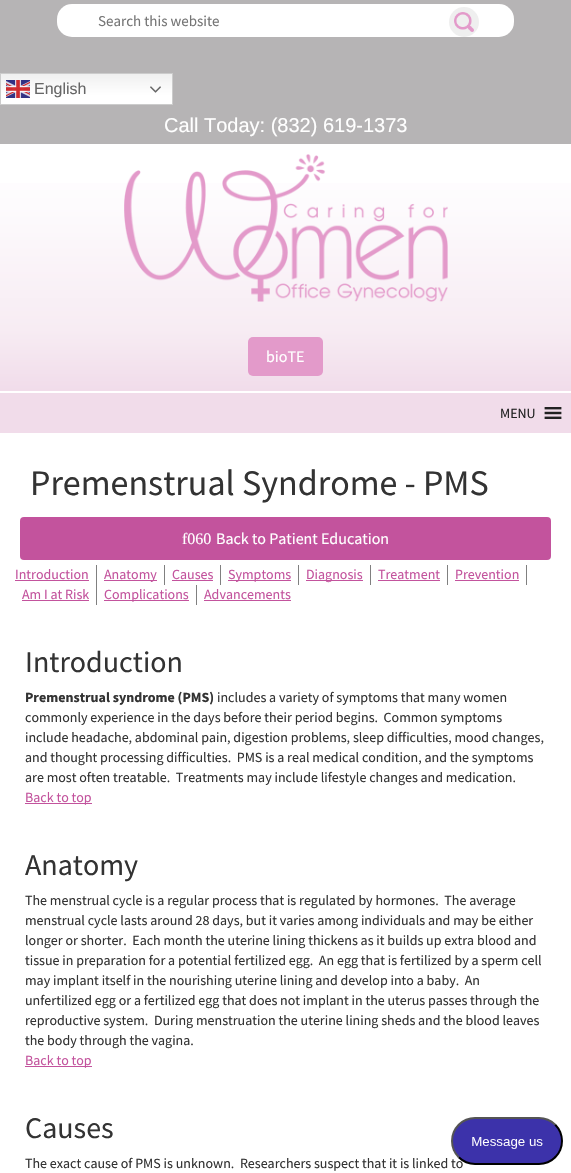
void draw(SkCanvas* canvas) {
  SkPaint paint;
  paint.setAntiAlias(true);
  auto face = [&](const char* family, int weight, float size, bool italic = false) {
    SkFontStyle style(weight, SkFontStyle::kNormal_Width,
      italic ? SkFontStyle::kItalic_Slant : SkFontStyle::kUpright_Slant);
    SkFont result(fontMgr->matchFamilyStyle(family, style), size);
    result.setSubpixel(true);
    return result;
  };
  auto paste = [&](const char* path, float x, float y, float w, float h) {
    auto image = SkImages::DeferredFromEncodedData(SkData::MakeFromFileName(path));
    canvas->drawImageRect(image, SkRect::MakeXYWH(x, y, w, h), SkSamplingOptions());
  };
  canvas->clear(0xffffffff);
  paint.setColor(0xffb6b4b5);
  canvas->drawRect(SkRect::MakeXYWH(0, 0, 571, 144), paint);
  paint.setColor(0xffffffff);
  canvas->drawRoundRect(SkRect::MakeXYWH(57, 4, 457, 33), 15, 15, paint);
  paint.setColor(0xffefefef);
  canvas->drawCircle(464, 22, 15, paint);
  paste("img/1.png", 454, 12, 20, 20);
  {
    const SkColor colors[] = {0xffefefef, 0xffffffff};
    const float stops[] = {0, 0.7f};
    const SkPoint ends[] = {{87, 73}, {87, 105}};
    paint.setShader(SkGradientShader::MakeLinear(ends, colors, stops, 2, SkTileMode::kClamp));
    paint.setAlpha(255);
  }
  canvas->drawRect(SkRect::MakeXYWH(1, 74, 171, 30), paint);
  paint.setStroke(true);
  paint.setStrokeWidth(1);
  paint.setShader(nullptr);
  paint.setColor(0xffcccccc);
  canvas->drawRect(SkRect::MakeXYWH(0.5f, 73.5f, 172, 31), paint);
  paste("img/2.png", 6, 80, 24, 18);
  paste("img/3.png", 150, 86, 11, 7);
  paint.setStroke(false);
  {
    const SkColor colors[] = {0xffffffff, 0xfffdfbfd, 0xfffaf3f8, 0xfff7ecf3, 0xfff1dcea};
    const float stops[] = {0, 0.25f, 0.5f, 0.75f, 1};
    const SkPoint ends[] = {{286, 144}, {286, 391}};
    paint.setShader(SkGradientShader::MakeLinear(ends, colors, stops, 5, SkTileMode::kClamp));
    paint.setAlpha(255);
  }
  canvas->drawRect(SkRect::MakeXYWH(0, 183, 571, 208), paint);
  paste("img/4.png", 124, 154, 324, 148);
  paint.setShader(nullptr);
  paint.setColor(0xffe39aca);
  canvas->drawRoundRect(SkRect::MakeXYWH(248, 337, 75, 39), 5, 5, paint);
  paint.setColor(0xfff1dcea);
  canvas->drawRect(SkRect::MakeXYWH(0, 393, 571, 40), paint);
  paste("img/5.png", 544, 407, 18, 12);
  paint.setColor(0xffc3539d);
  canvas->drawRoundRect(SkRect::MakeXYWH(20, 517, 531, 43), 4, 4, paint);
  {
    const struct { float x, y, w, h; SkColor color; } items[] = {
      {96, 565, 1, 40, 0xff808080},
      {15, 580, 74, 1, 0xffc3539d},
      {164, 565, 1, 20, 0xff808080},
      {104, 580, 53, 1, 0xffc3539d},
      {220, 565, 1, 20, 0xff808080},
      {172, 580, 41, 1, 0xffc3539d},
      {298, 565, 1, 20, 0xff808080},
      {228, 580, 63, 1, 0xffc3539d},
      {370, 565, 1, 20, 0xff808080},
      {306, 580, 57, 1, 0xffc3539d},
      {447, 565, 1, 20, 0xff808080},
      {378, 580, 62, 1, 0xffc3539d},
      {526, 565, 1, 20, 0xff808080},
      {455, 580, 64, 1, 0xffc3539d},
      {22, 600, 67, 1, 0xffc3539d},
      {196, 585, 1, 20, 0xff808080},
      {104, 600, 85, 1, 0xffc3539d},
      {204, 600, 87, 1, 0xffc3539d},
      {25, 803, 67, 1, 0xffc3539d},
      {25, 1066, 67, 1, 0xffc3539d},
    };
    for (auto [x, y, w, h, color] : items) {
      paint.setColor(color);
      canvas->drawRect(SkRect::MakeXYWH(x, y, w, h), paint);
    }
  }
  auto f0 = face("Source Sans Pro", 400, 15);
  paint.setColor(0xff757575);
  canvas->drawString("Search this website", 98, 26, f0, paint);
  auto f1 = face("Liberation Sans", 400, 16);
  paint.setColor(0xff666666);
  canvas->drawString("English", 34, 94, f1, paint);
  auto f2 = face("Liberation Sans", 400, 20);
  paint.setColor(0xffffffff);
  canvas->drawString("Call Today: (832) 619-1373", 164, 132, f2, paint);
  auto f3 = face("Source Sans Pro", 400, 16);
  canvas->drawString("bioTE", 266, 362, f3, paint);
  auto f4 = face("Source Sans Pro", 400, 14);
  paint.setColor(0xff222222);
  canvas->drawString("MENU", 500, 418, f4, paint);
  auto f5 = face("Source Sans Pro", 400, 36);
  paint.setColor(0xff333333);
  canvas->drawString("Premenstrual Syndrome - PMS", 30, 495, f5, paint);
  auto f6 = face("Liberation Serif", 400, 16);
  paint.setColor(0xffffffff);
  canvas->drawString("f060", 182, 544, f6, paint);
  canvas->drawString("Back to Patient Education", 216, 544, f3, paint);
  paint.setColor(0xffc3539d);
  {
    const struct { const char* s; float x, y; } items[] = {
      {"Introduction", 15, 579},
      {"Anatomy", 104, 579},
      {"Causes", 172, 579},
      {"Symptoms", 228, 579},
      {"Diagnosis", 306, 579},
      {"Treatment", 378, 579},
      {"Prevention", 455, 579},
      {"Am I at Risk", 22, 599},
      {"Complications", 104, 599},
      {"Advancements", 204, 599},
    };
    for (auto [s, x, y] : items) {
      canvas->drawString(s, x, y, f4, paint);
    }
  }
  auto f7 = face("Source Sans Pro", 400, 30);
  paint.setColor(0xff333333);
  canvas->drawString("Introduction", 25, 672, f7, paint);
  auto f8 = face("Source Sans Pro", 700, 14);
  canvas->drawString("Premenstrual syndrome (PMS)", 25, 702, f8, paint);
  {
    const struct { const char* s; float x, y; } items[] = {
      {"includes a variety of symptoms that many women", 217, 702},
      {"commonly experience in the days before their period begins.  Common symptoms", 25, 722},
      {"include headache, abdominal pain, digestion problems, sleep difficulties, mood changes,", 25, 742},
      {"and thought processing difficulties.  PMS is a real medical condition, and the symptoms", 25, 762},
      {"are most often treatable.  Treatments may include lifestyle changes and medication.", 25, 782},
    };
    for (auto [s, x, y] : items) {
      canvas->drawString(s, x, y, f4, paint);
    }
  }
  paint.setColor(0xffc3539d);
  canvas->drawString("Back to top", 25, 802, f4, paint);
  paint.setColor(0xff333333);
  canvas->drawString("Anatomy", 25, 875, f7, paint);
  {
    const struct { const char* s; float x, y; } items[] = {
      {"The menstrual cycle is a regular process that is regulated by hormones.  The average", 25, 905},
      {"menstrual cycle lasts around 28 days, but it varies among individuals and may be either", 25, 925},
      {"longer or shorter.  Each month the uterine lining thickens as it builds up extra blood and", 25, 945},
      {"tissue in preparation for a potential fertilized egg.  An egg that is fertilized by a sperm cell", 25, 965},
      {"may implant itself in the nourishing uterine lining and develop into a baby.  An", 25, 985},
      {"unfertilized egg or a fertilized egg that does not implant in the uterus passes through the", 25, 1005},
      {"reproductive system.  During menstruation the uterine lining sheds and the blood leaves", 25, 1025},
      {"the body through the vagina.", 25, 1045},
    };
    for (auto [s, x, y] : items) {
      canvas->drawString(s, x, y, f4, paint);
    }
  }
  paint.setColor(0xffc3539d);
  canvas->drawString("Back to top", 25, 1065, f4, paint);
  paint.setColor(0xff333333);
  canvas->drawString("Causes", 25, 1138, f7, paint);
  canvas->drawString("The exact cause of PMS is unknown.  Researchers suspect that it is linked to", 25, 1168, f4, paint);
  paste("img/6.png", 451, 1117, 112, 48);
}
